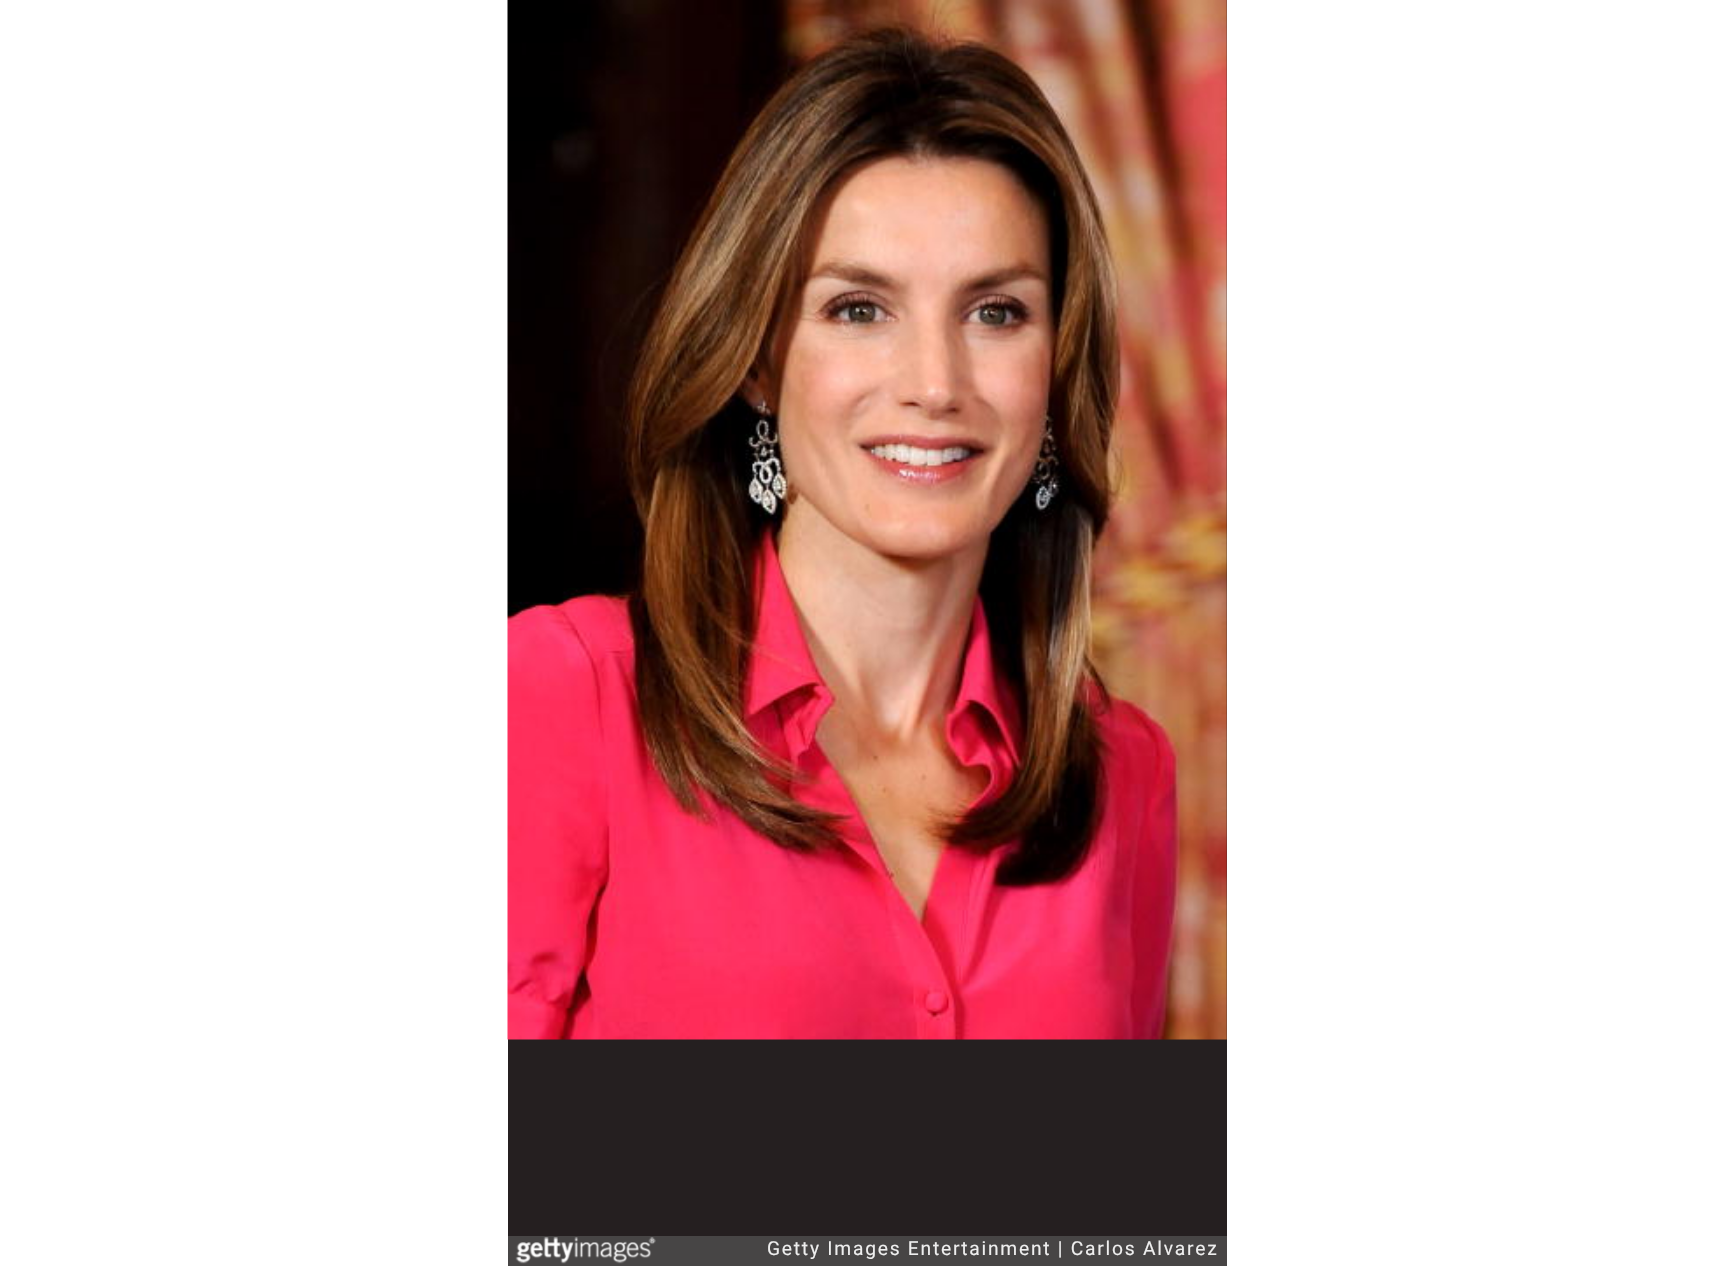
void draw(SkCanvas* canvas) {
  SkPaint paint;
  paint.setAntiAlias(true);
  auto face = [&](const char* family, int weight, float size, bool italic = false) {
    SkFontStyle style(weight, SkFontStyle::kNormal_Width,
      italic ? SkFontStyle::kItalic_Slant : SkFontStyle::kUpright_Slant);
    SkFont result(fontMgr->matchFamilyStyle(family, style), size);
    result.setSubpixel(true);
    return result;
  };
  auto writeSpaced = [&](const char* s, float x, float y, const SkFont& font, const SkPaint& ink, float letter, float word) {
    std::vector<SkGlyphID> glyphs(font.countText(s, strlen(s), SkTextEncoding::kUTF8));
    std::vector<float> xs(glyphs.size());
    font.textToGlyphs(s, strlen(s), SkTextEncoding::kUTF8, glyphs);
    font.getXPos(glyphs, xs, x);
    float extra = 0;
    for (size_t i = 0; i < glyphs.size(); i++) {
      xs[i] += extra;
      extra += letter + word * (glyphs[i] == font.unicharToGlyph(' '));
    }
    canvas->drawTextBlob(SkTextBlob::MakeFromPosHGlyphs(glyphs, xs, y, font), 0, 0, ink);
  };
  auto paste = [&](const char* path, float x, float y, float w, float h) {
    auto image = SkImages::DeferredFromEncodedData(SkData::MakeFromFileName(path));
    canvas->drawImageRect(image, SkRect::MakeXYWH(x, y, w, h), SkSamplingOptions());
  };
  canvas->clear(0xffffffff);
  paint.setColor(0xff251f20);
  canvas->drawRect(SkRect::MakeXYWH(508, 0, 719, 1236), paint);
  paste("img/1.png", 507, 0, 720, 1040);
  paint.setColor(0xff474545);
  canvas->drawRect(SkRect::MakeXYWH(508, 1236, 719, 30), paint);
  paste("img/2.png", 515, 1237, 141, 27);
  auto f0 = face("Roboto", 400, 19.25f);
  paint.setColor(0xffeeeeee);
  writeSpaced("Getty Images Entertainment | Carlos Alvarez", 767, 1255, f0, paint, 1.75f, 0);
}
